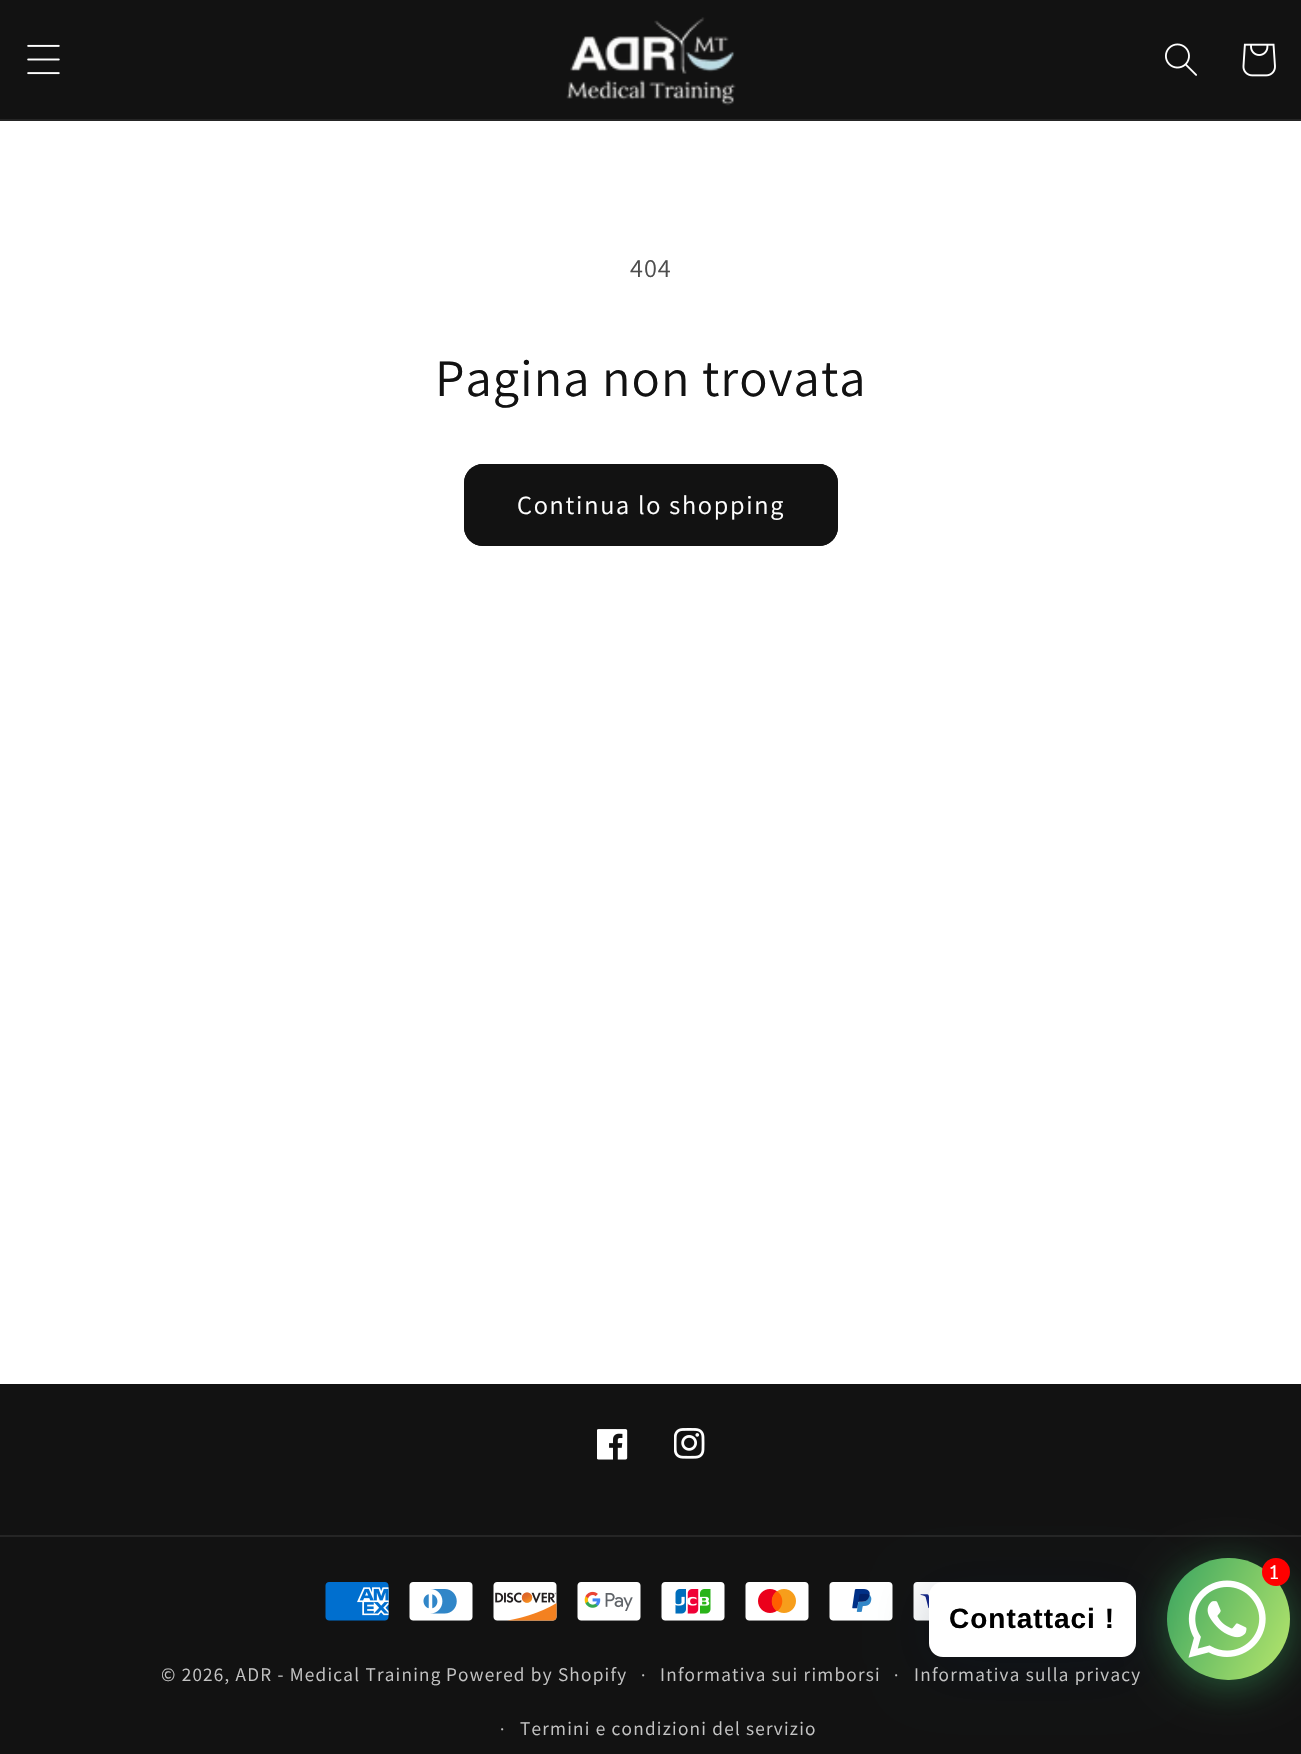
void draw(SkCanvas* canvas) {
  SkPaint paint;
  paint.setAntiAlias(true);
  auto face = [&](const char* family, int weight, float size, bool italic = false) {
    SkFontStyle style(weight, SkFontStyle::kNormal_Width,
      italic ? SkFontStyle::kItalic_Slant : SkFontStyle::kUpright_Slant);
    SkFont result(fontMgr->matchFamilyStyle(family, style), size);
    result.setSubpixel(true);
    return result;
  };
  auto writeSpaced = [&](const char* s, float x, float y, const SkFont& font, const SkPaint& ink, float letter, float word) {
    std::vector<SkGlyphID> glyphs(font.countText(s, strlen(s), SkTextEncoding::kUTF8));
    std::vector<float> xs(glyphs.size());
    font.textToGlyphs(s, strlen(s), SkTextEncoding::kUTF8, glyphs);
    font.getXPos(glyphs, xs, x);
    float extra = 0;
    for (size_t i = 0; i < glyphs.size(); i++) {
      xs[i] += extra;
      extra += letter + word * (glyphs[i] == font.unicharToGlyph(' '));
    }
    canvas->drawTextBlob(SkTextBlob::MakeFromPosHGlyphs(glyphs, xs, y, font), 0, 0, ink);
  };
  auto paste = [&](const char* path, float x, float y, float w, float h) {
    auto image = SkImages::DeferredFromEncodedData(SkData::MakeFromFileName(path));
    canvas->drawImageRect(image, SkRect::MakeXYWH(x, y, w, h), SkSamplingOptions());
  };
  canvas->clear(0xffffffff);
  paint.setColor(0xff121212);
  canvas->drawRect(SkRect::MakeXYWH(0, 0, 1301, 119), paint);
  paint.setColor(0xff252525);
  canvas->drawRect(SkRect::MakeXYWH(0, 119, 1301, 2), paint);
  paste("img/1.png", 27, 44, 33, 31);
  paste("img/2.png", 566, 17, 170, 89);
  paste("img/3.png", 1165, 43, 32, 33);
  paste("img/4.png", 1242, 43, 34, 34);
  paint.setColor(0xff121212);
  canvas->drawRoundRect(SkRect::MakeXYWH(464, 464, 374, 82), 19, 19, paint);
  paint.setStroke(true);
  paint.setStrokeWidth(2);
  canvas->drawRoundRect(SkRect::MakeXYWH(465, 465, 372, 80), 18, 18, paint);
  paint.setStroke(false);
  canvas->drawRect(SkRect::MakeXYWH(0, 1384, 1301, 370), paint);
  paint.setColor(0xff252525);
  canvas->drawRect(SkRect::MakeXYWH(0, 1535, 1301, 2), paint);
  paint.setColor(0x803aa560);
  paint.setMaskFilter(SkMaskFilter::MakeBlur(kNormal_SkBlurStyle, 21));
  canvas->drawRoundRect(SkRect::MakeXYWH(1167, 1565, 123, 122), 61, 61, paint);
  paint.setMaskFilter(nullptr);
  {
    const SkColor colors[] = {0xff3aa560, 0xffb7e66c};
    const float stops[] = {0, 1};
    const SkPoint ends[] = {{1155, 1584}, {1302, 1653}};
    paint.setShader(SkGradientShader::MakeLinear(ends, colors, stops, 2, SkTileMode::kClamp));
    paint.setAlpha(255);
  }
  canvas->drawRoundRect(SkRect::MakeXYWH(1167, 1558, 123, 122), 61, 61, paint);
  paste("img/14.png", 829, 1582, 64, 39);
  paste("img/15.png", 913, 1582, 30, 39);
  paint.setShader(nullptr);
  paint.setColor(0x3d00122e);
  paint.setMaskFilter(SkMaskFilter::MakeBlur(kNormal_SkBlurStyle, 28));
  canvas->drawRoundRect(SkRect::MakeXYWH(929, 1593, 207, 75), 14, 14, paint);
  paint.setMaskFilter(nullptr);
  paste("img/5.png", 1188, 1580, 78, 78);
  paint.setColor(0xffff0000);
  canvas->drawCircle(1276, 1572, 14, paint);
  paint.setColor(0xffffffff);
  canvas->drawRoundRect(SkRect::MakeXYWH(929, 1582, 207, 75), 14, 14, paint);
  paste("img/6.png", 597, 1429, 31, 31);
  paste("img/7.png", 674, 1428, 31, 31);
  paste("img/8.png", 325, 1582, 64, 39);
  paste("img/9.png", 409, 1582, 64, 39);
  paste("img/10.png", 493, 1582, 64, 39);
  paste("img/11.png", 577, 1582, 64, 39);
  paste("img/12.png", 661, 1582, 64, 39);
  paste("img/13.png", 745, 1582, 64, 39);
  auto f0 = face("Assistant", 400, 26.25f);
  paint.setColor(0xff4d4d4d);
  writeSpaced("404", 630, 277, f0, paint, 1, 0);
  auto f1 = face("Assistant", 400, 52.5f);
  paint.setColor(0xff121212);
  writeSpaced("Pagina non trovata", 435, 396, f1, paint, 1, 0);
  paint.setColor(0xffffffff);
  writeSpaced("Continua lo shopping", 517, 514, f0, paint, 1.75f, 0);
  auto f2 = face("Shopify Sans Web", 400, 19.25f);
  writeSpaced("1", 1270, 1579, f2, paint, 1, 0);
  auto f3 = face("Liberation Sans", 700, 28);
  paint.setColor(0xff000000);
  writeSpaced("Contattaci !", 949, 1628, f3, paint, 1, 0);
  auto f4 = face("Assistant", 400, 19.25f);
  paint.setColor(0xffc4c4c4);
  writeSpaced("© 2026, ADR - Medical Training", 161, 1681, f4, paint, 1.25f, 0);
  writeSpaced("Powered by Shopify", 446, 1681, f4, paint, 1.25f, 0);
  auto f5 = face("Assistant", 400, 18);
  writeSpaced("·", 641, 1681, f5, paint, 1.25f, 0);
  writeSpaced("Informativa sui rimborsi", 660, 1681, f4, paint, 1.25f, 0);
  writeSpaced("·", 894, 1681, f5, paint, 1.25f, 0);
  writeSpaced("Informativa sulla privacy", 914, 1681, f4, paint, 1.25f, 0);
  writeSpaced("·", 500, 1735, f5, paint, 1.25f, 0);
  writeSpaced("Termini e condizioni del servizio", 520, 1735, f4, paint, 1.25f, 0);
}
